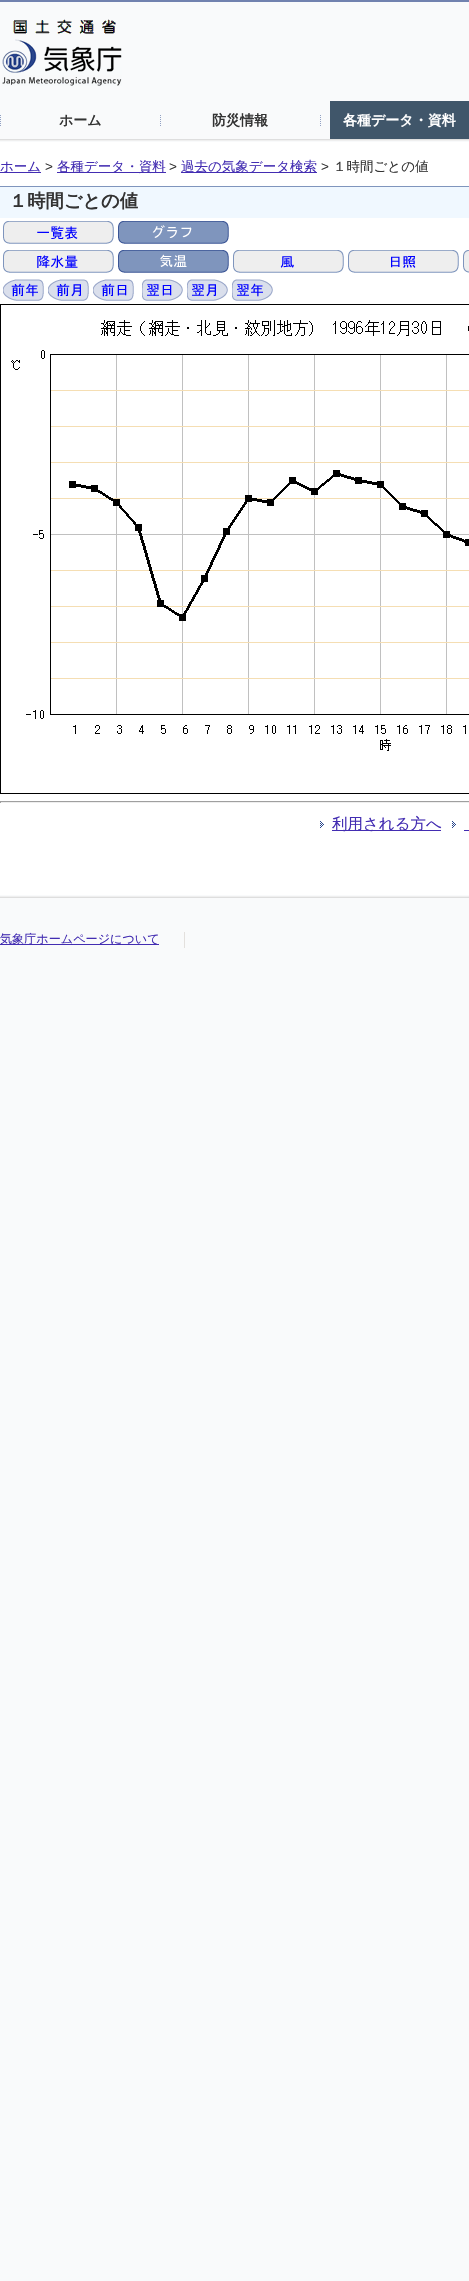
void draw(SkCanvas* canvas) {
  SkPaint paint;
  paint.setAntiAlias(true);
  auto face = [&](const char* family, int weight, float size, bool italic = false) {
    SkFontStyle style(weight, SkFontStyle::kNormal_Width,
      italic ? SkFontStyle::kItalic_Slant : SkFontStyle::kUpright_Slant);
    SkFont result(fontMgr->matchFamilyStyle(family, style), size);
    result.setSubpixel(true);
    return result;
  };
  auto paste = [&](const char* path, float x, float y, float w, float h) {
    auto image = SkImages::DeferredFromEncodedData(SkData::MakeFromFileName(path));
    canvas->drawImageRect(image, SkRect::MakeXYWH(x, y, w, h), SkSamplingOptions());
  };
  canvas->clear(0xfff9fafb);
  paste("img/1.png", 0, 139, 469, 2);
  paint.setColor(0xff7182af);
  canvas->drawRect(SkRect::MakeXYWH(0, 0, 469, 2), paint);
  paste("img/2.png", 2, 19, 120, 67);
  paste("img/3.png", 0, 115, 1, 11);
  paste("img/3.png", 160, 115, 1, 11);
  paste("img/3.png", 320, 115, 1, 11);
  {
    const struct { float x, y, w, h; SkColor color; } items[] = {
      {330, 101, 139, 38, 0xff40566a},
      {0, 142, 469, 753, 0xffffffff},
      {0, 172, 41, 1, 0xff432db2},
      {57, 172, 109, 1, 0xff432db2},
      {181, 172, 136, 1, 0xff432db2},
      {0, 187, 469, 31, 0xfff0f8ff},
      {0, 186, 469, 1, 0xff7f95bd},
    };
    for (auto [x, y, w, h, color] : items) {
      paint.setColor(color);
      canvas->drawRect(SkRect::MakeXYWH(x, y, w, h), paint);
    }
  }
  paste("img/4.png", 3, 221, 111, 23);
  paste("img/5.png", 118, 221, 111, 23);
  paste("img/6.png", 3, 250, 111, 23);
  paste("img/7.png", 118, 250, 111, 23);
  paste("img/8.png", 233, 250, 111, 23);
  paste("img/9.png", 348, 250, 111, 23);
  paste("img/10.png", 463, 250, 6, 23);
  paste("img/11.png", 3, 279, 41, 22);
  paste("img/12.png", 48, 279, 41, 22);
  paste("img/13.png", 93, 279, 41, 22);
  paste("img/14.png", 142, 279, 41, 22);
  paste("img/15.png", 187, 279, 41, 22);
  paste("img/16.png", 232, 279, 41, 22);
  paste("img/17.png", 0, 304, 469, 490);
  {
    const struct { float x, y, w, h; SkColor color; } items[] = {
      {0, 801, 469, 1, 0xff9f9f9f},
      {0, 802, 469, 1, 0xffeeeeee},
      {0, 801, 1, 2, 0xff9f9f9f},
    };
    for (auto [x, y, w, h, color] : items) {
      paint.setColor(color);
      canvas->drawRect(SkRect::MakeXYWH(x, y, w, h), paint);
    }
  }
  paste("img/18.png", 320, 821, 4, 7);
  paint.setColor(0xff432db2);
  canvas->drawRect(SkRect::MakeXYWH(332, 830, 109, 1), paint);
  paste("img/18.png", 452, 821, 4, 7);
  canvas->drawRect(SkRect::MakeXYWH(464, 830, 5, 1), paint);
  paste("img/19.png", 0, 896, 469, 2);
  paint.setColor(0xffe3e0dd);
  canvas->drawRect(SkRect::MakeXYWH(184, 932, 1, 16), paint);
  paint.setColor(0xff432db2);
  canvas->drawRect(SkRect::MakeXYWH(0, 944, 159, 1), paint);
  auto f0 = face("WenQuanYi Zen Hei", 700, 14);
  paint.setColor(0xff333333);
  canvas->drawString("ホーム", 59, 125, f0, paint);
  canvas->drawString("防災情報", 212, 125, f0, paint);
  paint.setColor(0xffffffff);
  canvas->drawString("各種データ・資料", 343, 125, f0, paint);
  auto f1 = face("WenQuanYi Zen Hei", 500, 13.5f);
  paint.setColor(0xff432db2);
  canvas->drawString("ホーム", 0, 171, f1, paint);
  auto f2 = face("Liberation Sans", 400, 13.5f);
  paint.setColor(0xff333333);
  canvas->drawString(">", 45, 171, f2, paint);
  paint.setColor(0xff432db2);
  canvas->drawString("各種データ・資料", 57, 171, f1, paint);
  paint.setColor(0xff333333);
  canvas->drawString(">", 169, 171, f2, paint);
  paint.setColor(0xff432db2);
  canvas->drawString("過去の気象データ検索", 181, 171, f1, paint);
  paint.setColor(0xff333333);
  canvas->drawString(">", 321, 171, f2, paint);
  canvas->drawString("１時間ごとの値", 333, 171, f1, paint);
  auto f3 = face("WenQuanYi Zen Hei", 700, 18.25f);
  canvas->drawString("１時間ごとの値", 9, 207, f3, paint);
  auto f4 = face("WenQuanYi Zen Hei", 500, 15.5f);
  paint.setColor(0xff432db2);
  canvas->drawString("利用される方へ", 332, 829, f4, paint);
  auto f5 = face("WenQuanYi Zen Hei", 500, 12.1f);
  canvas->drawString("気象庁ホームページについて", 0, 943, f5, paint);
}
